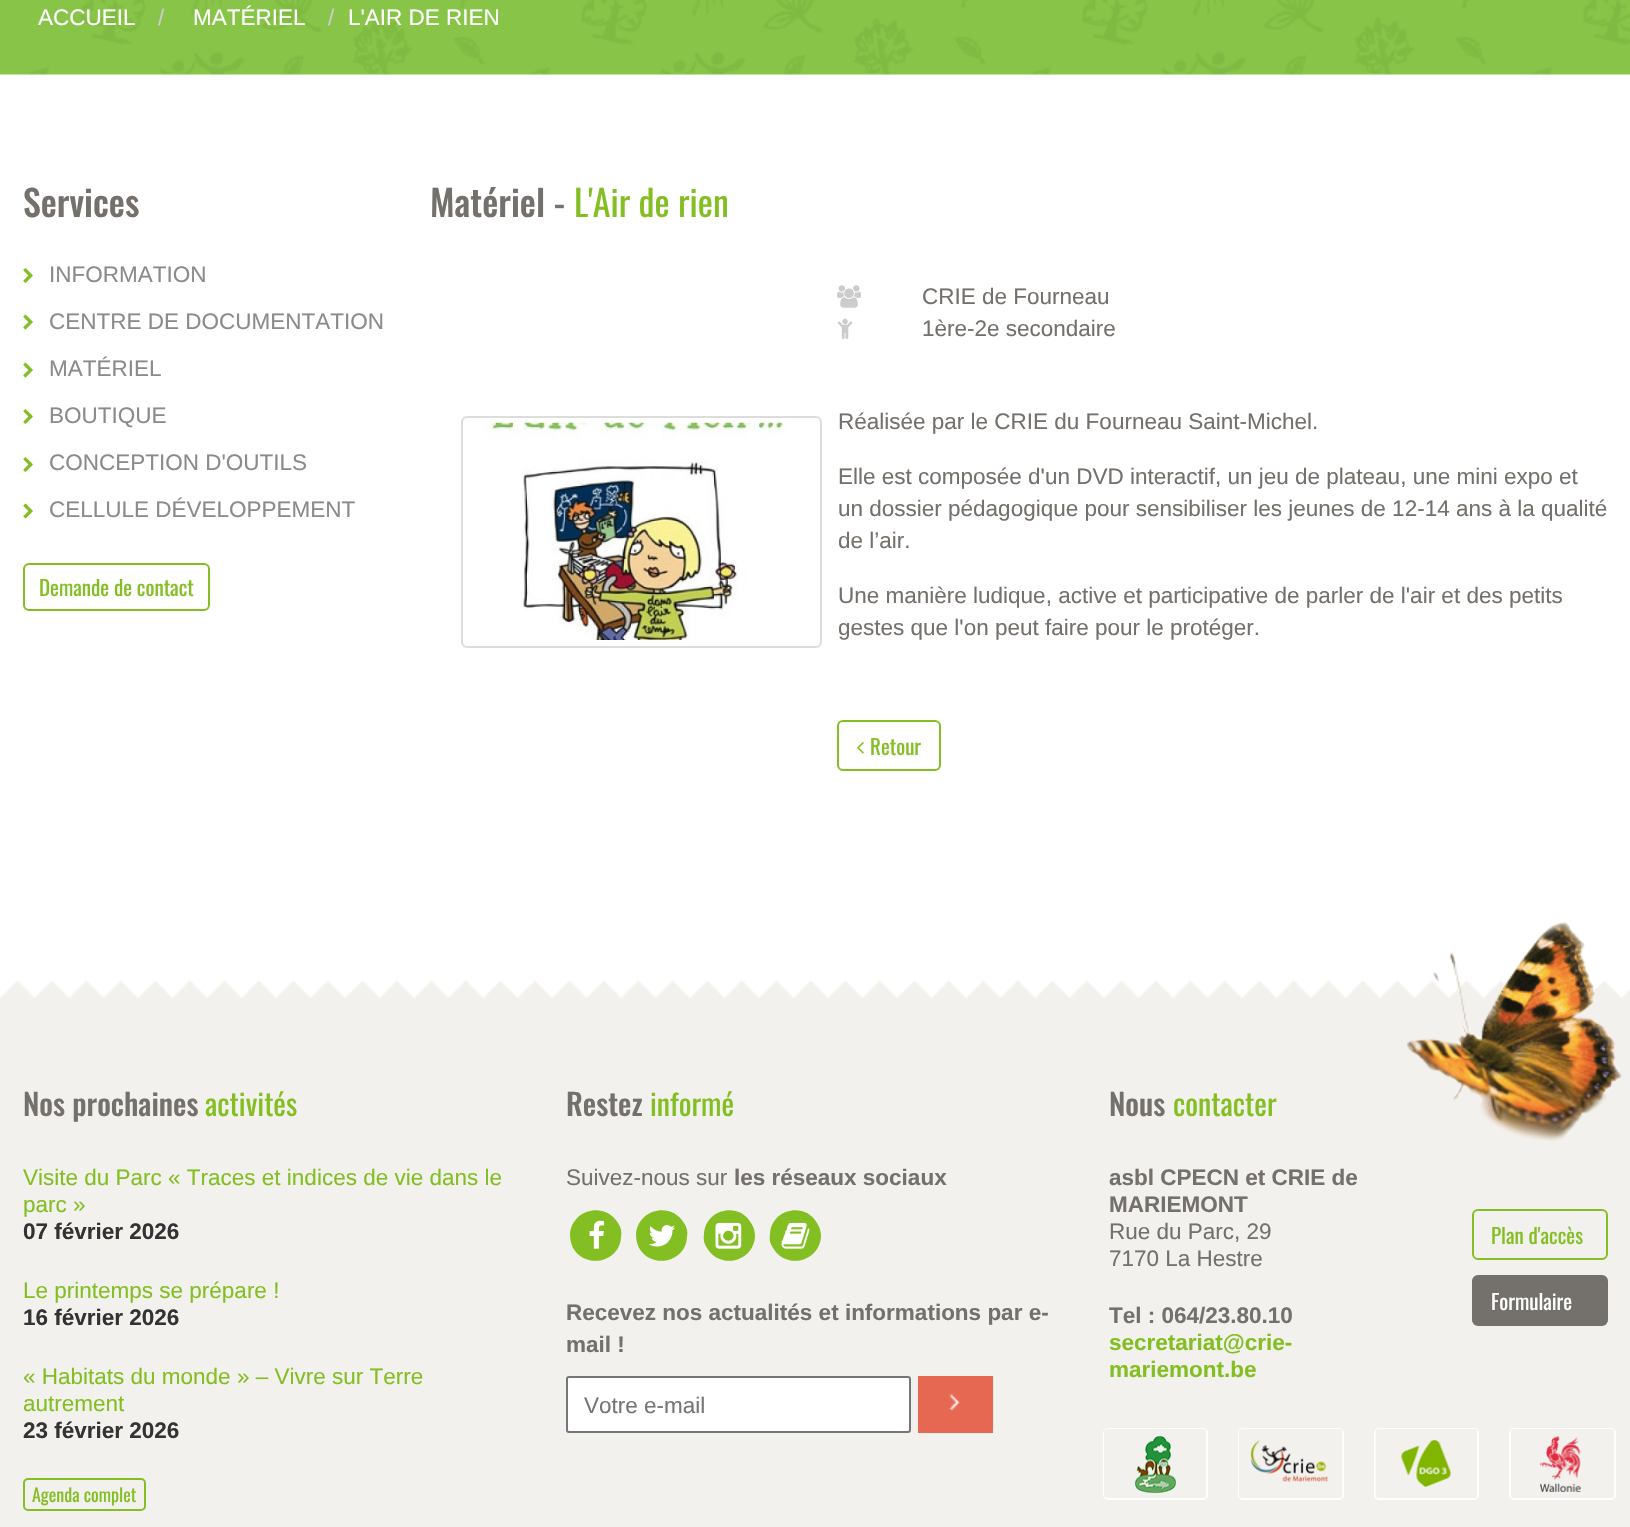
void draw(SkCanvas* canvas) {
  SkPaint paint;
  paint.setAntiAlias(true);
  auto face = [&](const char* family, int weight, float size, bool italic = false) {
    SkFontStyle style(weight, SkFontStyle::kNormal_Width,
      italic ? SkFontStyle::kItalic_Slant : SkFontStyle::kUpright_Slant);
    SkFont result(fontMgr->matchFamilyStyle(family, style), size);
    result.setSubpixel(true);
    return result;
  };
  auto paste = [&](const char* path, float x, float y, float w, float h) {
    auto image = SkImages::DeferredFromEncodedData(SkData::MakeFromFileName(path));
    canvas->drawImageRect(image, SkRect::MakeXYWH(x, y, w, h), SkSamplingOptions());
  };
  auto shape = [&](const char* data, bool evenOdd = false) {
    SkPath result = *SkParsePath::FromSVGString(data);
    if (evenOdd) result.setFillType(SkPathFillType::kEvenOdd);
    return result;
  };
  canvas->clear(0xffffffff);
  paste("img/1.png", 0, 0, 1630, 75);
  paste("img/2.png", 23, 268, 10, 15);
  paste("img/3.png", 23, 314, 10, 16);
  paste("img/3.png", 23, 362, 10, 16);
  paste("img/2.png", 23, 409, 10, 15);
  paste("img/2.png", 23, 457, 10, 15);
  paste("img/3.png", 23, 503, 10, 16);
  paint.setStroke(true);
  paint.setStrokeWidth(2);
  paint.setColor(0xff83bf23);
  canvas->drawRoundRect(SkRect::MakeXYWH(24, 564, 185, 46), 5, 5, paint);
  paint.setColor(0xffdddddd);
  canvas->drawRoundRect(SkRect::MakeXYWH(462, 417, 359, 230), 5, 5, paint);
  paste("img/4.png", 483, 422, 304, 218);
  paste("img/5.png", 837, 285, 24, 23);
  paste("img/6.png", 837, 318, 16, 21);
  paint.setColor(0xff83bf23);
  canvas->drawRoundRect(SkRect::MakeXYWH(838, 721, 102, 49), 5, 5, paint);
  paste("img/7.png", 857, 742, 7, 12);
  paste("img/8.png", 0, 980, 1630, 547);
  paste("img/9.png", 1406, 921, 216, 220);
  canvas->drawRoundRect(SkRect::MakeXYWH(24, 1479, 121, 31), 4, 4, paint);
  paint.setStroke(false);
  canvas->drawPath(shape("M618 1223C621 1227 622 1232 621 1237C620 1262 586 1270 573 1248C571 1244 570 1239 570 1234C572 1209 605 1201 618 1223Z"), paint);
  paste("img/10.png", 589, 1220, 16, 29);
  canvas->drawPath(shape("M684 1223C687 1227 688 1232 687 1237C686 1262 652 1270 639 1248C637 1244 636 1239 636 1234C638 1209 671 1201 684 1223Z"), paint);
  paste("img/11.png", 649, 1225, 26, 22);
  canvas->drawPath(shape("M751 1223C754 1227 755 1232 755 1237C753 1262 720 1270 707 1248C704 1244 703 1239 704 1234C705 1209 739 1201 751 1223Z"), paint);
  paste("img/12.png", 715, 1222, 27, 27);
  canvas->drawPath(shape("M817 1223C820 1227 821 1232 821 1237C819 1262 786 1270 773 1248C770 1244 769 1239 770 1234C771 1209 805 1201 817 1223Z"), paint);
  paste("img/13.png", 781, 1222, 29, 27);
  paint.setColor(0xffffffff);
  canvas->drawRoundRect(SkRect::MakeXYWH(567, 1377, 343, 55), 2, 2, paint);
  paint.setStroke(true);
  paint.setColor(0xff767676);
  canvas->drawRoundRect(SkRect::MakeXYWH(567, 1377, 343, 55), 2, 2, paint);
  paint.setStroke(false);
  paint.setColor(0xffe66853);
  canvas->drawRect(SkRect::MakeXYWH(918, 1376, 75, 57), paint);
  paste("img/14.png", 949, 1394, 11, 17);
  paint.setStroke(true);
  paint.setColor(0xff83bf23);
  canvas->drawRoundRect(SkRect::MakeXYWH(1473, 1210, 134, 49), 5, 5, paint);
  paint.setStroke(false);
  paint.setColor(0xff74706c);
  canvas->drawRoundRect(SkRect::MakeXYWH(1473, 1276, 134, 49), 5, 5, paint);
  paint.setStroke(true);
  canvas->drawRoundRect(SkRect::MakeXYWH(1473, 1276, 134, 49), 5, 5, paint);
  paint.setColor(0xffffffff);
  canvas->drawRoundRect(SkRect::MakeXYWH(1104, 1429, 103, 70), 4, 4, paint);
  paste("img/15.png", 1104, 1429, 102, 69);
  canvas->drawRoundRect(SkRect::MakeXYWH(1239, 1429, 104, 70), 4, 4, paint);
  paste("img/16.png", 1239, 1429, 104, 69);
  canvas->drawRoundRect(SkRect::MakeXYWH(1375, 1429, 103, 70), 4, 4, paint);
  paste("img/17.png", 1375, 1429, 103, 69);
  canvas->drawRoundRect(SkRect::MakeXYWH(1510, 1429, 105, 70), 4, 4, paint);
  paste("img/18.png", 1510, 1429, 104, 69);
  auto f0 = face("Liberation Sans", 400, 22.5f);
  paint.setStroke(false);
  canvas->drawString("ACCUEIL", 38, 25, f0, paint);
  paint.setColor(0xffcccccc);
  canvas->drawString("/", 158, 25, f0, paint);
  paint.setColor(0xffffffff);
  canvas->drawString("MATÉRIEL", 193, 25, f0, paint);
  paint.setColor(0xffcccccc);
  canvas->drawString("/", 328, 25, f0, paint);
  paint.setColor(0xffffffff);
  canvas->drawString("L'AIR DE RIEN", 348, 25, f0, paint);
  auto f1 = face("Oswald", 500, 36);
  paint.setColor(0xff74706c);
  canvas->drawString("Services", 23, 217, f1, paint);
  paint.setColor(0xff8b8b8b);
  {
    const struct { const char* s; float x, y; } items[] = {
      {"INFORMATION", 49, 282},
      {"CENTRE DE DOCUMENTATION", 49, 329},
      {"MATÉRIEL", 49, 376},
      {"BOUTIQUE", 49, 423},
      {"CONCEPTION D'OUTILS", 49, 470},
      {"CELLULE DÉVELOPPEMENT", 49, 517},
    };
    for (auto [s, x, y] : items) {
      canvas->drawString(s, x, y, f0, paint);
    }
  }
  auto f2 = face("Oswald", 400, 21);
  paint.setColor(0xff83bf23);
  canvas->drawString("Demande de contact", 39, 596, f2, paint);
  paint.setColor(0xff74706c);
  canvas->drawString("Matériel -", 430, 217, f1, paint);
  auto f3 = face("Oswald", 400, 36);
  paint.setColor(0xff83bf23);
  canvas->drawString("L'Air de rien", 574, 217, f3, paint);
  paint.setColor(0xff74706c);
  {
    const struct { const char* s; float x, y; } items[] = {
      {"CRIE de Fourneau", 922, 304},
      {"1ère-2e secondaire", 922, 336},
      {"Réalisée par le CRIE du Fourneau Saint-Michel.", 838, 429},
      {"Elle est composée d'un DVD interactif, un jeu de plateau, une mini expo et", 838, 484},
      {"un dossier pédagogique pour sensibiliser les jeunes de 12-14 ans à la qualité", 838, 516},
      {"de l’air.", 838, 548},
      {"Une manière ludique, active et participative de parler de l'air et des petits", 838, 603},
      {"gestes que l'on peut faire pour le protéger.", 838, 635},
    };
    for (auto [s, x, y] : items) {
      canvas->drawString(s, x, y, f0, paint);
    }
  }
  paint.setColor(0xff83bf23);
  canvas->drawString("Retour", 870, 755, f2, paint);
  auto f4 = face("Oswald", 500, 30);
  paint.setColor(0xff74706c);
  canvas->drawString("Nos prochaines", 23, 1116, f4, paint);
  auto f5 = face("Oswald", 400, 30);
  paint.setColor(0xff83bf23);
  canvas->drawString("activités", 205, 1116, f5, paint);
  canvas->drawString("Visite du Parc « Traces et indices de vie dans le", 23, 1185, f0, paint);
  canvas->drawString("parc »", 23, 1212, f0, paint);
  auto f6 = face("Liberation Sans", 700, 22.5f);
  paint.setColor(0xff333333);
  canvas->drawString("07 février 2026", 23, 1239, f6, paint);
  paint.setColor(0xff83bf23);
  canvas->drawString("Le printemps se prépare !", 23, 1298, f0, paint);
  paint.setColor(0xff333333);
  canvas->drawString("16 février 2026", 23, 1325, f6, paint);
  paint.setColor(0xff83bf23);
  canvas->drawString("« Habitats du monde » – Vivre sur Terre", 23, 1384, f0, paint);
  canvas->drawString("autrement", 23, 1411, f0, paint);
  paint.setColor(0xff333333);
  canvas->drawString("23 février 2026", 23, 1438, f6, paint);
  auto f7 = face("Oswald", 400, 18);
  paint.setColor(0xff83bf23);
  canvas->drawString("Agenda complet", 32, 1502, f7, paint);
  paint.setColor(0xff74706c);
  canvas->drawString("Restez", 566, 1116, f4, paint);
  paint.setColor(0xff83bf23);
  canvas->drawString("informé", 650, 1116, f5, paint);
  paint.setColor(0xff74706c);
  canvas->drawString("Suivez-nous sur", 566, 1185, f0, paint);
  {
    const struct { const char* s; float x, y; } items[] = {
      {"les réseaux sociaux", 734, 1185},
      {"Recevez nos actualités et informations par e-", 566, 1320},
      {"mail !", 566, 1352},
    };
    for (auto [s, x, y] : items) {
      canvas->drawString(s, x, y, f6, paint);
    }
  }
  paint.setColor(0xff757575);
  canvas->drawString("Votre e-mail", 584, 1413, f0, paint);
  paint.setColor(0xff74706c);
  canvas->drawString("Nous", 1109, 1116, f4, paint);
  paint.setColor(0xff83bf23);
  canvas->drawString("contacter", 1173, 1116, f5, paint);
  paint.setColor(0xff74706c);
  canvas->drawString("asbl CPECN et CRIE de", 1109, 1185, f6, paint);
  canvas->drawString("MARIEMONT", 1109, 1212, f6, paint);
  canvas->drawString("Rue du Parc, 29", 1109, 1239, f0, paint);
  canvas->drawString("7170 La Hestre", 1109, 1266, f0, paint);
  canvas->drawString("Tel : 064/23.80.10", 1109, 1323, f6, paint);
  paint.setColor(0xff83bf23);
  canvas->drawString("secretariat@crie-", 1109, 1350, f6, paint);
  canvas->drawString("mariemont.be", 1109, 1377, f6, paint);
  canvas->drawString("Plan d'accès", 1491, 1244, f2, paint);
  paint.setColor(0xffffffff);
  canvas->drawString("Formulaire", 1491, 1310, f2, paint);
}
